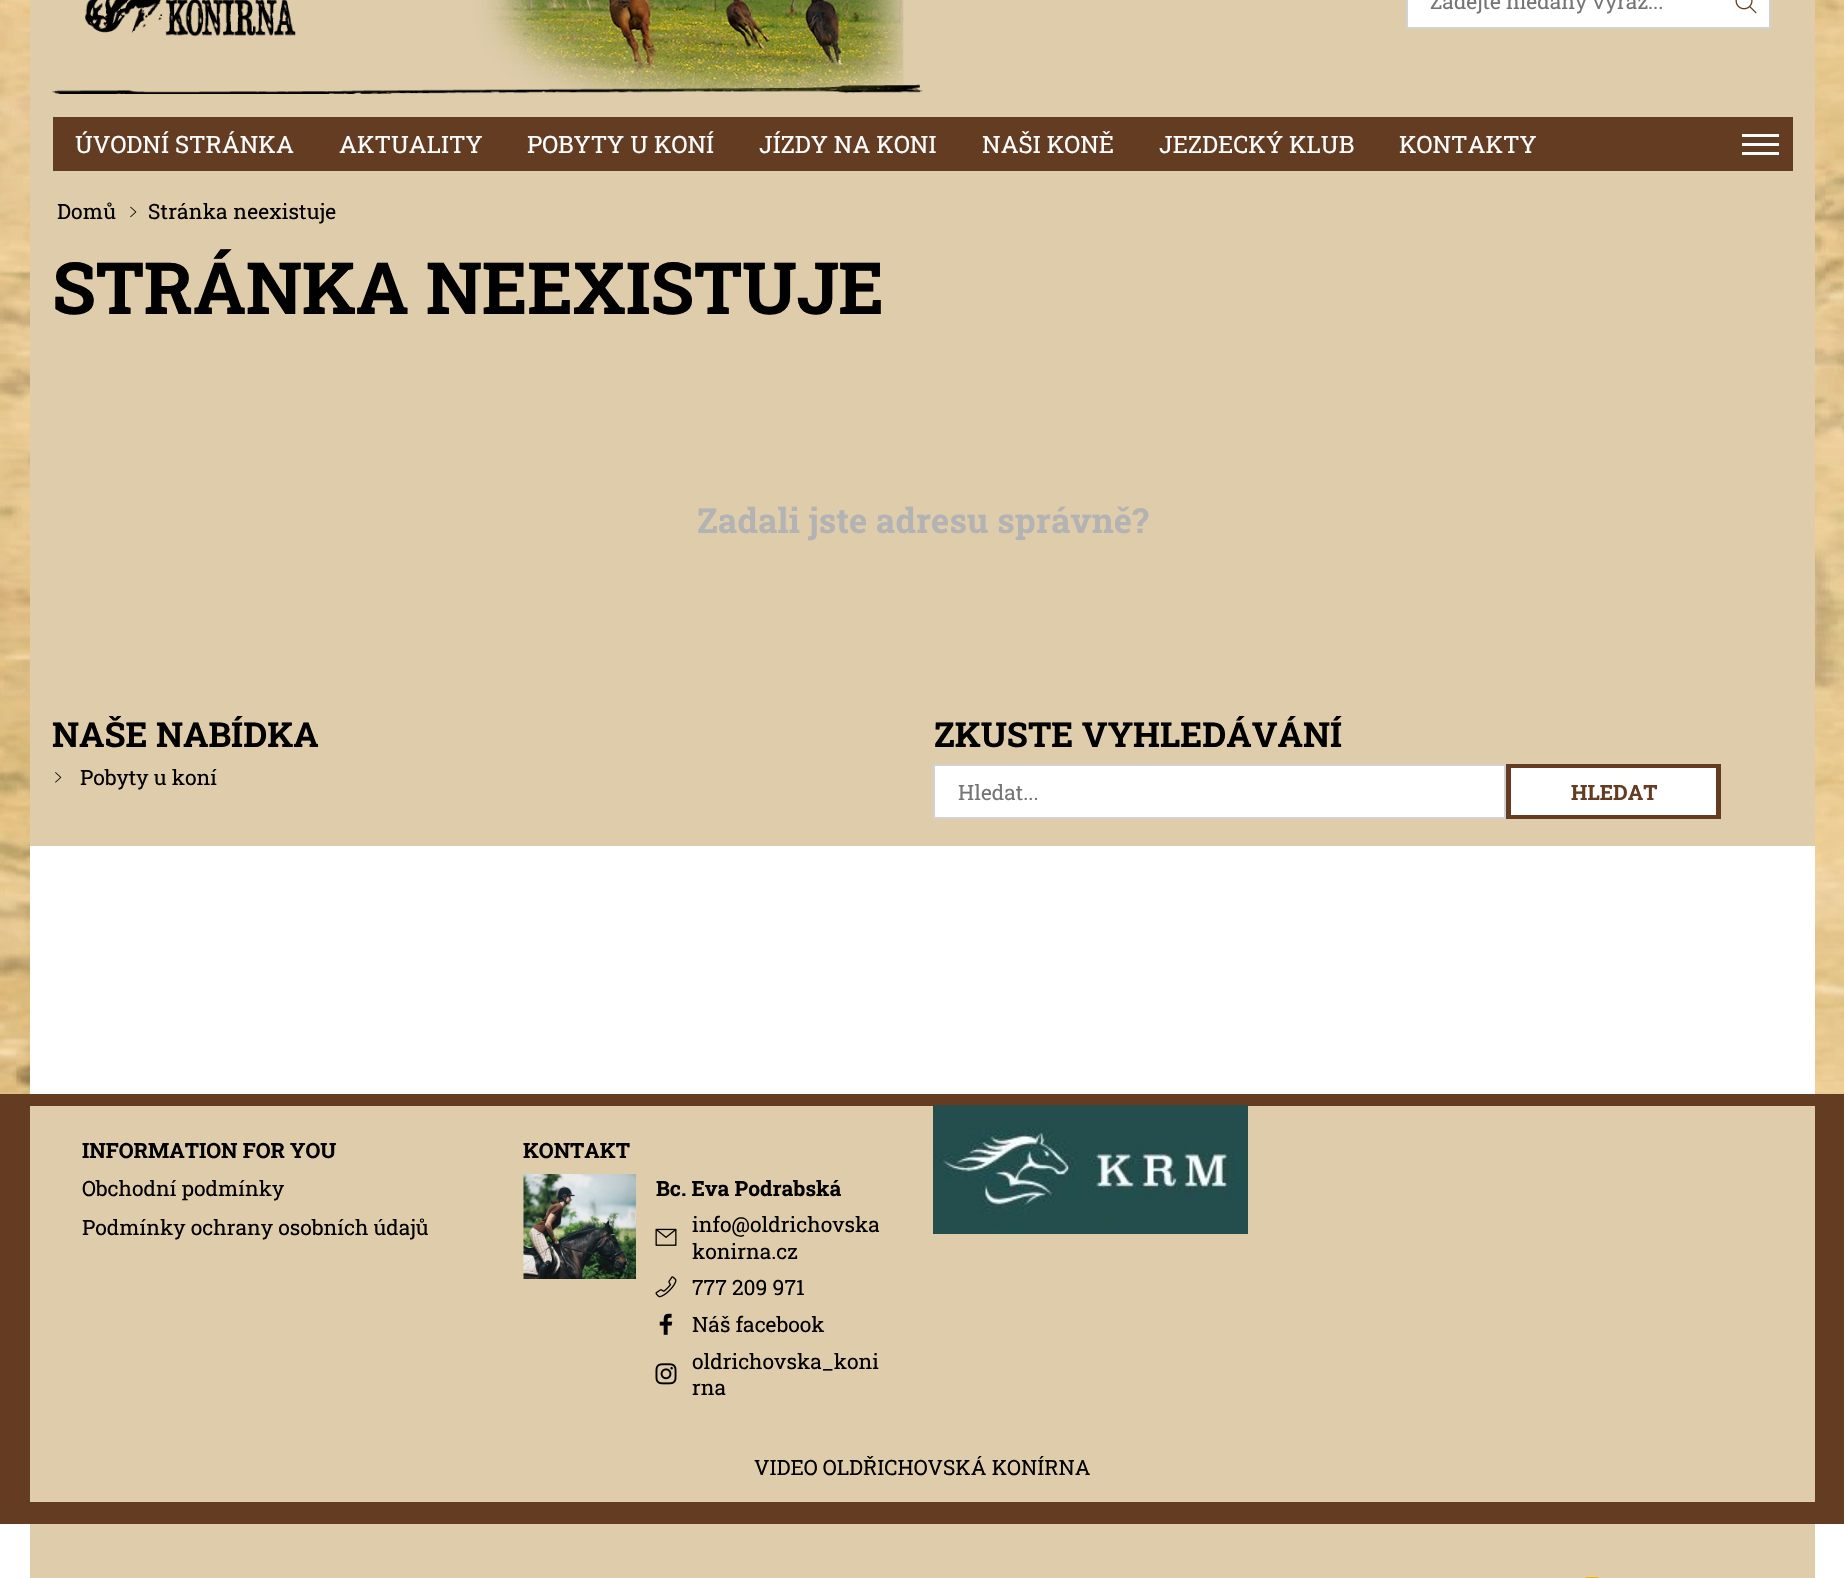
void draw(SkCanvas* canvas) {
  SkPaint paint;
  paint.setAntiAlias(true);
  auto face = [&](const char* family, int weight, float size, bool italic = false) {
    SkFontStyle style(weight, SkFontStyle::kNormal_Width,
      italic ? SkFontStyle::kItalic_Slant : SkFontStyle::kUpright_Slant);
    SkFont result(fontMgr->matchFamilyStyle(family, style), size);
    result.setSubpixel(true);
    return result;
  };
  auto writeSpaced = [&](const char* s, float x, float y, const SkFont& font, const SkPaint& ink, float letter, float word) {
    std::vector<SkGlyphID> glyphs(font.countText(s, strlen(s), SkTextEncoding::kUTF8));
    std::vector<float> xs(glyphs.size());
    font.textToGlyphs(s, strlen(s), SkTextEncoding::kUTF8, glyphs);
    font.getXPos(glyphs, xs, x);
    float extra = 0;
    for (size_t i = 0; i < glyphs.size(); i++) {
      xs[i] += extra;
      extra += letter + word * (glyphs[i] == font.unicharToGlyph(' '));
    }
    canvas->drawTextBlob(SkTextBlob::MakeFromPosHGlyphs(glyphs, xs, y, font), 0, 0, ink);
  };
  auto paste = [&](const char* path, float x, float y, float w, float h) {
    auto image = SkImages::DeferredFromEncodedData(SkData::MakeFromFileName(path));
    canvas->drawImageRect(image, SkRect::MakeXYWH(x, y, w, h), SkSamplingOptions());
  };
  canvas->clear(0xffffffff);
  paste("img/1.png", 0, 0, 1844, 1094);
  paint.setColor(0xffdeccaa);
  canvas->drawRect(SkRect::MakeXYWH(30, 0, 1785, 846), paint);
  paste("img/2.png", 52, 0, 871, 94);
  {
    const struct { float x, y, w, h; SkColor color; } items[] = {
      {1408, 0, 361, 27, 0xffffffff},
      {1406, 27, 318, 2, 0xffd2d2d2},
      {1406, 0, 2, 29, 0xffd2d2d2},
      {1769, 0, 2, 29, 0xffd2d2d2},
      {1724, 27, 46, 2, 0xffd2d2d2},
    };
    for (auto [x, y, w, h, color] : items) {
      paint.setColor(color);
      canvas->drawRect(SkRect::MakeXYWH(x, y, w, h), paint);
    }
  }
  paste("img/3.png", 1735, 0, 22, 14);
  {
    const struct { float x, y, w, h; SkColor color; } items[] = {
      {53, 117, 1740, 54, 0xff633c22},
      {1742, 134, 37, 3, 0xffffffff},
      {1742, 143, 37, 3, 0xffffffff},
      {1742, 152, 37, 3, 0xffffffff},
      {30, 846, 1785, 248, 0xffffffff},
    };
    for (auto [x, y, w, h, color] : items) {
      paint.setColor(color);
      canvas->drawRect(SkRect::MakeXYWH(x, y, w, h), paint);
    }
  }
  paste("img/4.png", 130, 206, 7, 12);
  paste("img/5.png", 55, 772, 7, 11);
  canvas->drawRect(SkRect::MakeXYWH(934, 765, 571, 53), paint);
  paint.setStroke(true);
  paint.setStrokeWidth(2);
  paint.setColor(0xffd2d2d2);
  canvas->drawRect(SkRect::MakeXYWH(934, 765, 571, 53), paint);
  paint.setStroke(false);
  paint.setColor(0xffffffff);
  canvas->drawRect(SkRect::MakeXYWH(1509.5f, 766.5f, 208, 50), paint);
  paint.setStroke(true);
  paint.setStrokeWidth(3);
  paint.setColor(0xff633c22);
  canvas->drawRect(SkRect::MakeXYWH(1509.5f, 766.5f, 208, 50), paint);
  paint.setStrokeWidth(2);
  canvas->drawRect(SkRect::MakeXYWH(1507, 765, 213, 53), paint);
  paint.setStroke(false);
  canvas->drawRect(SkRect::MakeXYWH(0, 1094, 1844, 430), paint);
  paint.setColor(0xffdeccaa);
  canvas->drawRect(SkRect::MakeXYWH(30, 1106, 1785, 396), paint);
  paste("img/6.png", 523, 1174, 113, 105);
  paste("img/7.png", 655, 1228, 22, 18);
  paste("img/8.png", 655, 1276, 22, 22);
  paste("img/9.png", 659, 1313, 14, 22);
  paste("img/10.png", 655, 1363, 22, 22);
  paste("img/11.png", 933, 1105, 315, 129);
  canvas->drawRect(SkRect::MakeXYWH(30, 1524, 1785, 54), paint);
  paint.setColor(0xfffcaf00);
  canvas->drawRect(SkRect::MakeXYWH(1586, 1577, 12, 1), paint);
  auto f0 = face("Roboto Slab", 400, 21);
  paint.setColor(0xff757575);
  canvas->drawString("Zadejte hledaný výraz...", 1430, 9, f0, paint);
  auto f1 = face("Roboto Slab", 400, 24);
  paint.setColor(0xffffffff);
  {
    const struct { const char* s; float x, y; } items[] = {
      {"ÚVODNÍ STRÁNKA", 75, 153},
      {"AKTUALITY", 339, 153},
      {"POBYTY U KONÍ", 527, 153},
      {"JÍZDY NA KONI", 759, 153},
      {"NAŠI KONĚ", 982, 153},
      {"JEZDECKÝ KLUB", 1159, 153},
      {"KONTAKTY", 1399, 153},
    };
    for (auto [s, x, y] : items) {
      canvas->drawString(s, x, y, f1, paint);
    }
  }
  paint.setColor(0xff000000);
  writeSpaced("Domů", 57, 219, f0, paint, 0.15f, 0);
  writeSpaced("Stránka neexistuje", 148, 219, f0, paint, 0.15f, 0);
  auto f2 = face("Roboto Slab", 700, 72);
  writeSpaced("STRÁNKA NEEXISTUJE", 52, 314, f2, paint, -0.4f, 0);
  auto f3 = face("Roboto Slab", 700, 34.5f);
  paint.setColor(0xffb3b3b3);
  writeSpaced("Zadali jste adresu správně?", 697, 533, f3, paint, 0.15f, 0);
  paint.setColor(0xff000000);
  canvas->drawString("NAŠE NABÍDKA", 52, 747, f3, paint);
  canvas->drawString("Pobyty u koní", 80, 785, f0, paint);
  canvas->drawString("ZKUSTE VYHLEDÁVÁNÍ", 934, 747, f3, paint);
  paint.setColor(0xff757575);
  canvas->drawString("Hledat...", 958, 800, f0, paint);
  auto f4 = face("Roboto Slab", 700, 21);
  paint.setColor(0xff633c22);
  canvas->drawString("HLEDAT", 1571, 800, f4, paint);
  paint.setColor(0xff000000);
  canvas->drawString("INFORMATION FOR YOU", 82, 1158, f4, paint);
  canvas->drawString("Obchodní podmínky", 82, 1196, f0, paint);
  canvas->drawString("Podmínky ochrany osobních údajů", 82, 1235, f0, paint);
  canvas->drawString("KONTAKT", 523, 1158, f4, paint);
  canvas->drawString("Bc. Eva Podrabská", 656, 1196, f4, paint);
  {
    const struct { const char* s; float x, y; } items[] = {
      {"info@oldrichovska", 692, 1232},
      {"konirna.cz", 692, 1259},
      {"777 209 971", 692, 1295},
      {"Náš facebook", 692, 1332},
      {"oldrichovska_koni", 692, 1369},
      {"rna", 692, 1395},
      {"VIDEO OLDŘICHOVSKÁ KONÍRNA", 754, 1475},
    };
    for (auto [s, x, y] : items) {
      canvas->drawString(s, x, y, f0, paint);
    }
  }
}
